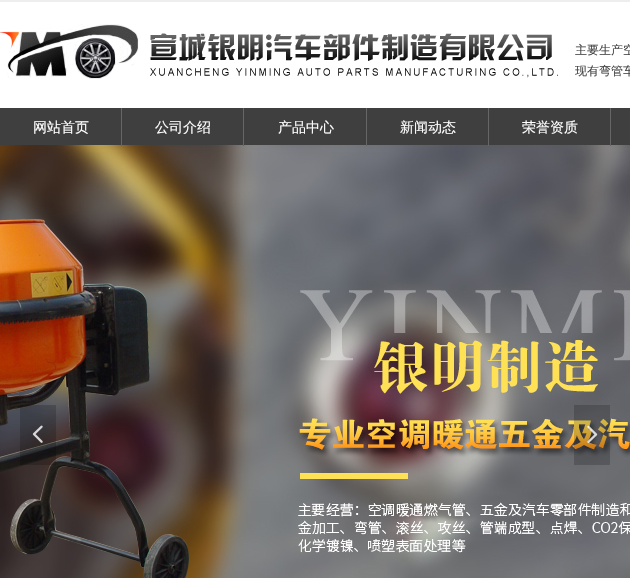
void draw(SkCanvas* canvas) {
  SkPaint paint;
  paint.setAntiAlias(true);
  auto face = [&](const char* family, int weight, float size, bool italic = false) {
    SkFontStyle style(weight, SkFontStyle::kNormal_Width,
      italic ? SkFontStyle::kItalic_Slant : SkFontStyle::kUpright_Slant);
    SkFont result(fontMgr->matchFamilyStyle(family, style), size);
    result.setSubpixel(true);
    return result;
  };
  auto paste = [&](const char* path, float x, float y, float w, float h) {
    auto image = SkImages::DeferredFromEncodedData(SkData::MakeFromFileName(path));
    canvas->drawImageRect(image, SkRect::MakeXYWH(x, y, w, h), SkSamplingOptions());
  };
  canvas->clear(0xff3f3f3f);
  paint.setColor(0xffeeeeee);
  canvas->drawRect(SkRect::MakeXYWH(0, 0, 630, 2), paint);
  paint.setColor(0xffffffff);
  canvas->drawRect(SkRect::MakeXYWH(0, 2, 630, 106), paint);
  paste("img/1.png", 0, 24, 558, 55);
  paste("img/2.png", 0, 145, 630, 433);
  {
    const struct { float x, y, w, h; SkColor color; } items[] = {
      {121, 108, 1, 38, 0xff666666},
      {243, 108, 1, 38, 0xff666666},
      {366, 108, 1, 38, 0xff666666},
      {488, 108, 1, 38, 0xff666666},
      {610, 108, 1, 38, 0xff666666},
    };
    for (auto [x, y, w, h, color] : items) {
      paint.setColor(color);
      canvas->drawRect(SkRect::MakeXYWH(x, y, w, h), paint);
    }
  }
  paste("img/3.png", 0, 219, 189, 359);
  paint.setColor(0x30000000);
  canvas->drawRect(SkRect::MakeXYWH(20, 405, 36, 60), paint);
  paste("img/4.png", 32, 425, 11, 18);
  canvas->drawRect(SkRect::MakeXYWH(574, 405, 36, 60), paint);
  paste("img/5.png", 587, 425, 11, 18);
  auto f0 = face("WenQuanYi Zen Hei", 500, 12);
  paint.setColor(0xff444444);
  canvas->drawString("主要生产空", 575, 54, f0, paint);
  canvas->drawString("现有弯管车", 575, 75, f0, paint);
  auto f1 = face("WenQuanYi Zen Hei", 500, 14);
  paint.setColor(0xffffffff);
  {
    const struct { const char* s; float x, y; } items[] = {
      {"网站首页", 33, 132},
      {"公司介绍", 155, 132},
      {"产品中心", 278, 132},
      {"新闻动态", 400, 132},
      {"荣誉资质", 522, 132},
    };
    for (auto [s, x, y] : items) {
      canvas->drawString(s, x, y, f1, paint);
    }
  }
}
